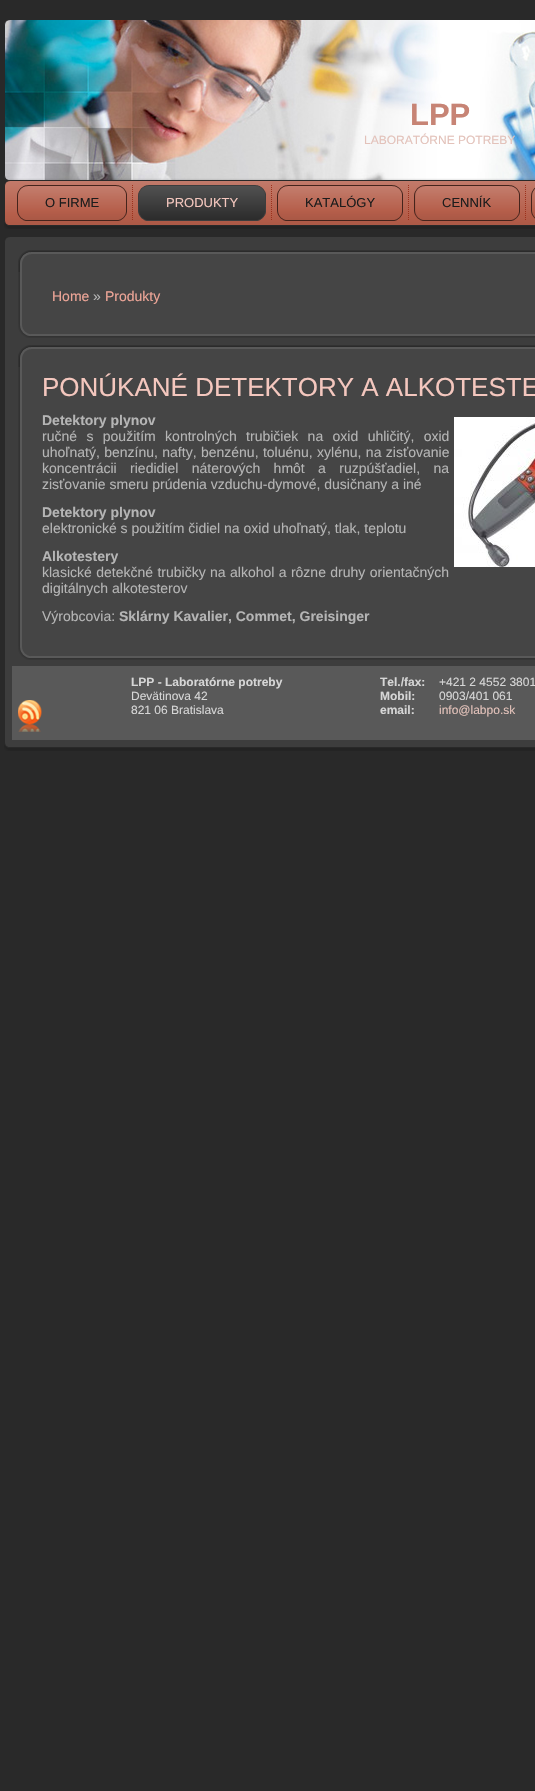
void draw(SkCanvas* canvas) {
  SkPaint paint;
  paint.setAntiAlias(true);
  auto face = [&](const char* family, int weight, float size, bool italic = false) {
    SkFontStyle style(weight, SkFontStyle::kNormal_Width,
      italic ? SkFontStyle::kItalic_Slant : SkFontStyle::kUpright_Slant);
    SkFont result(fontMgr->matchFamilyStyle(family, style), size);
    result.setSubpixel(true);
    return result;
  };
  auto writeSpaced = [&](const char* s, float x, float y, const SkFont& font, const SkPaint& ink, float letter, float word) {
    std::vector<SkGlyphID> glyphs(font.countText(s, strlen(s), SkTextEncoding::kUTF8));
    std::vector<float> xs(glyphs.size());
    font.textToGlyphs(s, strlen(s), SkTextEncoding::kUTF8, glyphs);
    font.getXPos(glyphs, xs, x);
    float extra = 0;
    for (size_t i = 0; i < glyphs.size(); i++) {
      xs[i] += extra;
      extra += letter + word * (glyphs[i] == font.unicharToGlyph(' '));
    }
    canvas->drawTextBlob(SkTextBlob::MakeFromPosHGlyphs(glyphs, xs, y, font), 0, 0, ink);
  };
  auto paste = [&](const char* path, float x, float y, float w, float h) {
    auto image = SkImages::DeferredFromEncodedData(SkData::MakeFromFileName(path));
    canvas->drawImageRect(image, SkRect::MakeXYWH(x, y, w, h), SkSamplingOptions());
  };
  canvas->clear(0xff292929);
  paste("img/1.png", 4, 20, 531, 160);
  paste("img/2.png", 4, 178, 531, 51);
  paste("img/3.png", 17, 185, 99, 36);
  paste("img/4.png", 116, 185, 11, 36);
  paste("img/5.png", 132, 185, 1, 35);
  paste("img/6.png", 138, 185, 117, 36);
  paste("img/7.png", 255, 185, 11, 36);
  paste("img/5.png", 271, 185, 1, 35);
  paste("img/8.png", 277, 185, 115, 36);
  paste("img/4.png", 392, 185, 11, 36);
  paste("img/5.png", 408, 185, 1, 35);
  paste("img/9.png", 414, 185, 95, 36);
  paste("img/4.png", 509, 185, 11, 36);
  paste("img/5.png", 525, 185, 1, 35);
  paste("img/10.png", 531, 187, 4, 32);
  paste("img/11.png", 4, 237, 531, 514);
  paint.setColor(0xff3d3d3d);
  canvas->drawRect(SkRect::MakeXYWH(5, 254, 530, 476), paint);
  paste("img/12.png", 18, 250, 517, 88);
  paste("img/13.png", 18, 250, 517, 22);
  paste("img/14.png", 18, 272, 517, 44);
  paste("img/15.png", 18, 345, 517, 315);
  paste("img/13.png", 18, 345, 517, 22);
  paste("img/16.png", 18, 367, 517, 271);
  paste("img/17.png", 454, 417, 81, 150);
  paint.setColor(0xff595959);
  canvas->drawRect(SkRect::MakeXYWH(12, 666, 523, 74), paint);
  paste("img/18.png", 18, 700, 24, 32);
  auto f0 = face("Liberation Sans", 700, 31);
  paint.setColor(0xffc78475);
  canvas->drawString("LPP", 410, 125, f0, paint);
  auto f1 = face("Liberation Sans", 400, 12);
  paint.setColor(0xffe3c2ba);
  canvas->drawString("LABORATÓRNE POTREBY", 364, 144, f1, paint);
  auto f2 = face("Liberation Sans", 400, 13);
  paint.setColor(0xff1c1c1c);
  canvas->drawString("O FIRME", 45, 207, f2, paint);
  paint.setColor(0xfff4c7be);
  canvas->drawString("PRODUKTY", 166, 207, f2, paint);
  paint.setColor(0xff1c1c1c);
  canvas->drawString("KATALÓGY", 305, 207, f2, paint);
  canvas->drawString("CENNÍK", 442, 207, f2, paint);
  auto f3 = face("Liberation Sans", 400, 14);
  paint.setColor(0xffeda597);
  canvas->drawString("Home", 52, 301, f3, paint);
  paint.setColor(0xffb5b5b5);
  canvas->drawString("»", 93, 301, f3, paint);
  paint.setColor(0xffeda597);
  canvas->drawString("Produkty", 105, 301, f3, paint);
  auto f4 = face("Liberation Sans", 400, 26);
  paint.setColor(0xfff4c7be);
  canvas->drawString("PONÚKANÉ DETEKTORY A ALKOTESTE", 42, 396, f4, paint);
  auto f5 = face("Liberation Sans", 700, 14);
  paint.setColor(0xffb5b5b5);
  canvas->drawString("Detektory plynov", 42, 425, f5, paint);
  writeSpaced("ručné s použitím kontrolných trubičiek na oxid uhličitý, oxid", 42, 441, f3, paint, 0, 5.5f);
  writeSpaced("uhoľnatý, benzínu, nafty, benzénu, toluénu, xylénu, na zisťovanie", 42, 457, f3, paint, 0, 0.5f);
  writeSpaced("koncentrácii riedidiel náterových hmôt a ruzpúšťadiel, na", 42, 473, f3, paint, 0, 9.5f);
  canvas->drawString("zisťovanie smeru prúdenia vzduchu-dymové, dusičnany a iné", 42, 489, f3, paint);
  canvas->drawString("Detektory plynov", 42, 517, f5, paint);
  canvas->drawString("elektronické s použitím čidiel na oxid uhoľnatý, tlak, teplotu", 42, 533, f3, paint);
  canvas->drawString("Alkotestery", 42, 561, f5, paint);
  writeSpaced("klasické detekčné trubičky na alkohol a rôzne druhy orientačných", 42, 577, f3, paint, 0, 0.5f);
  canvas->drawString("digitálnych alkotesterov", 42, 593, f3, paint);
  canvas->drawString("Výrobcovia:", 42, 621, f3, paint);
  canvas->drawString("Sklárny Kavalier, Commet, Greisinger", 119, 621, f5, paint);
  auto f6 = face("Liberation Sans", 700, 12);
  paint.setColor(0xffd6d6d6);
  canvas->drawString("LPP - Laboratórne potreby", 131, 686, f6, paint);
  canvas->drawString("Devätinova 42", 131, 700, f1, paint);
  canvas->drawString("821 06 Bratislava", 131, 714, f1, paint);
  {
    const struct { const char* s; float x, y; } items[] = {
      {"Tel./fax:", 380, 686},
      {"Mobil:", 380, 700},
      {"email:", 380, 714},
    };
    for (auto [s, x, y] : items) {
      canvas->drawString(s, x, y, f6, paint);
    }
  }
  canvas->drawString("+421 2 4552 3801", 439, 686, f1, paint);
  canvas->drawString("0903/401 061", 439, 700, f1, paint);
  paint.setColor(0xffe3c2ba);
  canvas->drawString("info@labpo.sk", 439, 714, f1, paint);
}
